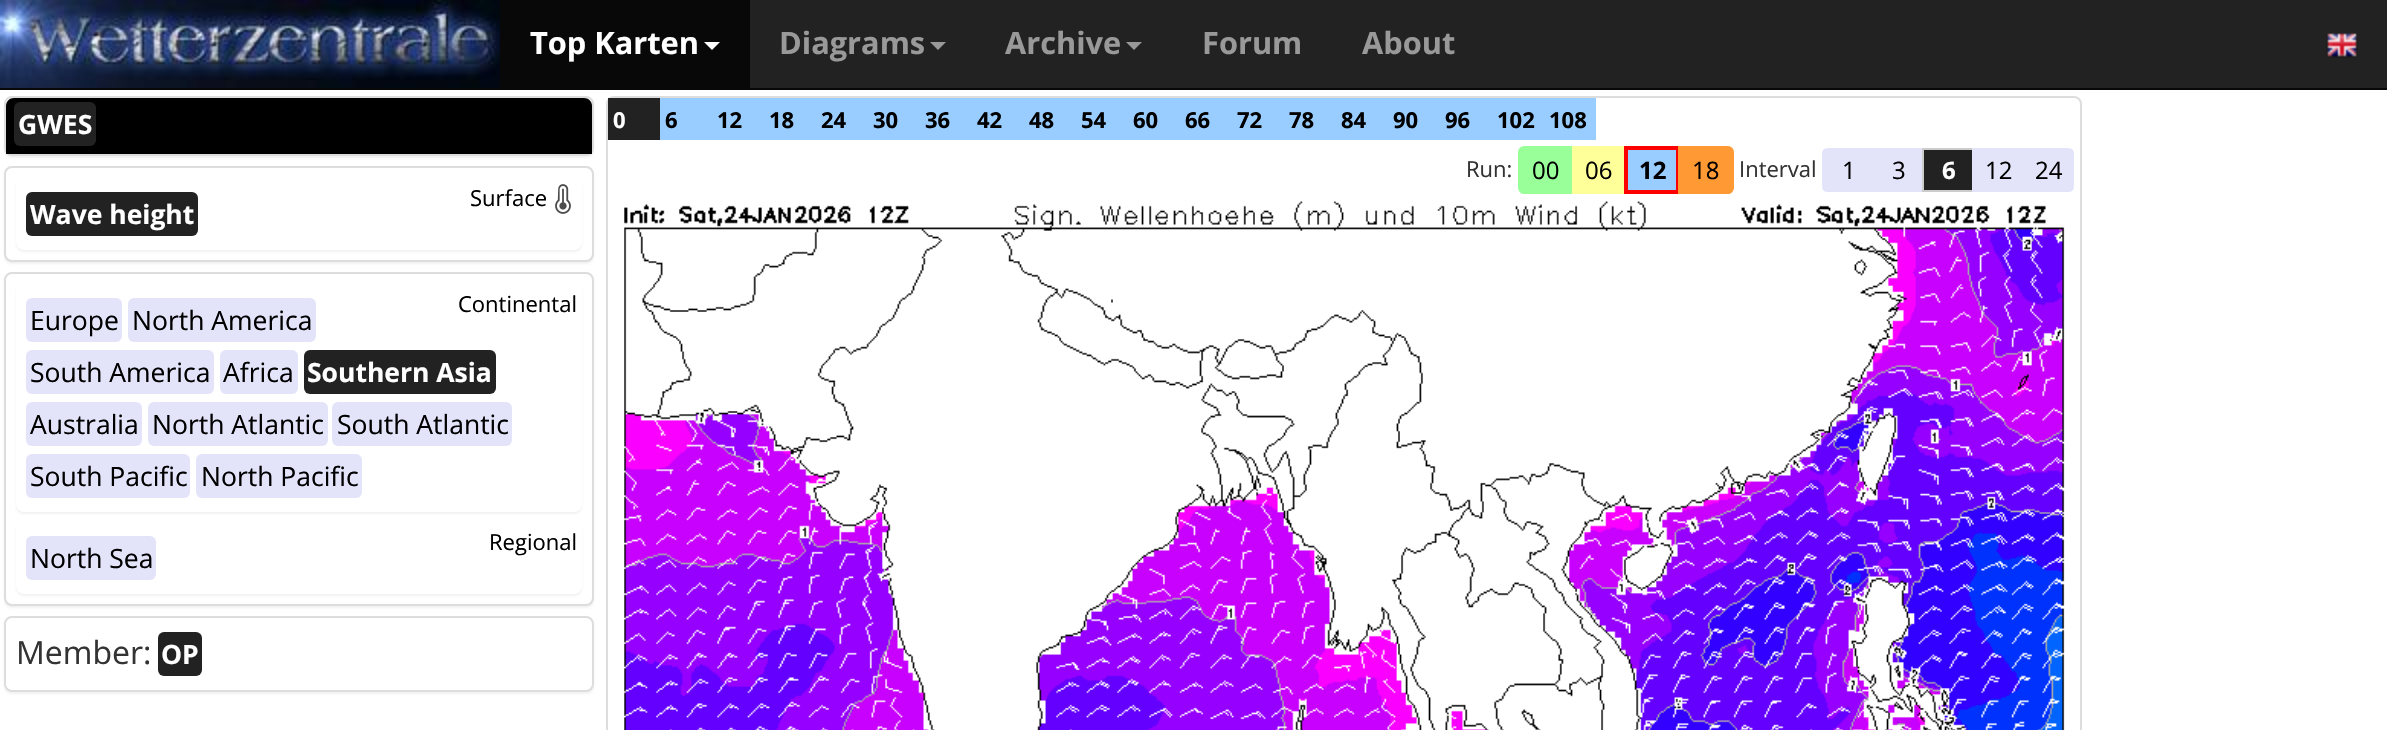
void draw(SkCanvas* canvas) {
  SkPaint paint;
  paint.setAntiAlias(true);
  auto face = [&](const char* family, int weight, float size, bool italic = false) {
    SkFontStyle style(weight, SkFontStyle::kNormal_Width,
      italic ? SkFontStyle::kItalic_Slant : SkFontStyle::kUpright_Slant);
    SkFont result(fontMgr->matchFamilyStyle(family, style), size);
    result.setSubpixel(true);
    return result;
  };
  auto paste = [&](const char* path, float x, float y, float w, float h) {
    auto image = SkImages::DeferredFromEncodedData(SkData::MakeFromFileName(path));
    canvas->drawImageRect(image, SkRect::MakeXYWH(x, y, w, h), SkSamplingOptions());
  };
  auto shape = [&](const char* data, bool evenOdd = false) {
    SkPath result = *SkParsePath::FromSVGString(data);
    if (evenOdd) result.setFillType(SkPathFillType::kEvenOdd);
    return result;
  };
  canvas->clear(0xffffffff);
  paint.setColor(0xff222222);
  canvas->drawRect(SkRect::MakeXYWH(750, 0, 1637, 88), paint);
  paint.setColor(0xff080808);
  canvas->drawRect(SkRect::MakeXYWH(0, 88, 2387, 2), paint);
  paste("img/1.png", 0, 0, 500, 88);
  canvas->drawRect(SkRect::MakeXYWH(500, 0, 250, 88), paint);
  paint.setColor(0xffffffff);
  canvas->drawPath(shape("M704 42H720L712 50Z"), paint);
  paint.setColor(0xff999999);
  canvas->drawPath(shape("M930 42H946L938 50Z"), paint);
  canvas->drawPath(shape("M1126 42H1142L1134 50Z"), paint);
  paste("img/2.png", 2326, 33, 32, 25);
  paint.setColor(0x0d000000);
  paint.setMaskFilter(SkMaskFilter::MakeBlur(kNormal_SkBlurStyle, 1));
  canvas->drawRoundRect(SkRect::MakeXYWH(4, 98, 590, 60), 8, 8, paint);
  paint.setMaskFilter(nullptr);
  paint.setColor(0xffffffff);
  canvas->drawRoundRect(SkRect::MakeXYWH(5, 97, 588, 58), 7, 7, paint);
  paint.setStroke(true);
  paint.setStrokeWidth(2);
  paint.setColor(0xffdddddd);
  canvas->drawRoundRect(SkRect::MakeXYWH(5, 97, 588, 58), 7, 7, paint);
  paint.setStroke(false);
  paint.setColor(0xff000000);
  canvas->drawPath(shape("M14 98H584C588.5 98 592 101.5 592 106V154H6V106C6 101.5 9.5 98 14 98Z"), paint);
  paint.setColor(0xff222222);
  canvas->drawRoundRect(SkRect::MakeXYWH(14, 102, 82, 44), 6, 6, paint);
  paint.setColor(0x0d000000);
  paint.setMaskFilter(SkMaskFilter::MakeBlur(kNormal_SkBlurStyle, 1));
  canvas->drawRoundRect(SkRect::MakeXYWH(4, 168, 590, 96), 8, 8, paint);
  paint.setMaskFilter(nullptr);
  paint.setColor(0xffffffff);
  canvas->drawRoundRect(SkRect::MakeXYWH(5, 167, 588, 94), 7, 7, paint);
  paint.setStroke(true);
  paint.setColor(0xffdddddd);
  canvas->drawRoundRect(SkRect::MakeXYWH(5, 167, 588, 94), 7, 7, paint);
  paint.setStroke(false);
  paint.setColor(0x0d000000);
  paint.setMaskFilter(SkMaskFilter::MakeBlur(kNormal_SkBlurStyle, 1));
  canvas->drawRoundRect(SkRect::MakeXYWH(16, 180, 566, 72), 8, 8, paint);
  paint.setMaskFilter(nullptr);
  paint.setColor(0xffffffff);
  canvas->drawRoundRect(SkRect::MakeXYWH(16, 178, 566, 72), 8, 8, paint);
  paste("img/3.png", 555, 184, 16, 30);
  paint.setColor(0xff222222);
  canvas->drawRoundRect(SkRect::MakeXYWH(26, 192, 172, 44), 6, 6, paint);
  paint.setColor(0x0d000000);
  paint.setMaskFilter(SkMaskFilter::MakeBlur(kNormal_SkBlurStyle, 1));
  canvas->drawRoundRect(SkRect::MakeXYWH(4, 274, 590, 334), 8, 8, paint);
  paint.setMaskFilter(nullptr);
  paint.setColor(0xffffffff);
  canvas->drawRoundRect(SkRect::MakeXYWH(5, 273, 588, 332), 7, 7, paint);
  paint.setStroke(true);
  paint.setColor(0xffdddddd);
  canvas->drawRoundRect(SkRect::MakeXYWH(5, 273, 588, 332), 7, 7, paint);
  paint.setStroke(false);
  paint.setColor(0x0d000000);
  paint.setMaskFilter(SkMaskFilter::MakeBlur(kNormal_SkBlurStyle, 1));
  canvas->drawRoundRect(SkRect::MakeXYWH(16, 286, 566, 228), 8, 8, paint);
  paint.setMaskFilter(nullptr);
  paint.setColor(0xffffffff);
  canvas->drawRoundRect(SkRect::MakeXYWH(16, 284, 566, 228), 8, 8, paint);
  paint.setColor(0xffe3e4fa);
  canvas->drawRoundRect(SkRect::MakeXYWH(26, 298, 96, 44), 6, 6, paint);
  canvas->drawRoundRect(SkRect::MakeXYWH(128, 298, 188, 44), 6, 6, paint);
  canvas->drawRoundRect(SkRect::MakeXYWH(26, 350, 188, 44), 6, 6, paint);
  canvas->drawRoundRect(SkRect::MakeXYWH(220, 350, 78, 44), 6, 6, paint);
  paint.setColor(0xff222222);
  canvas->drawRoundRect(SkRect::MakeXYWH(304, 350, 192, 44), 6, 6, paint);
  paint.setColor(0xffe3e4fa);
  canvas->drawRoundRect(SkRect::MakeXYWH(26, 402, 116, 44), 6, 6, paint);
  canvas->drawRoundRect(SkRect::MakeXYWH(148, 402, 180, 44), 6, 6, paint);
  canvas->drawRoundRect(SkRect::MakeXYWH(332, 402, 180, 44), 6, 6, paint);
  canvas->drawRoundRect(SkRect::MakeXYWH(26, 454, 164, 44), 6, 6, paint);
  canvas->drawRoundRect(SkRect::MakeXYWH(196, 454, 166, 44), 6, 6, paint);
  paint.setColor(0x0d000000);
  paint.setMaskFilter(SkMaskFilter::MakeBlur(kNormal_SkBlurStyle, 1));
  canvas->drawRoundRect(SkRect::MakeXYWH(16, 524, 566, 72), 8, 8, paint);
  paint.setMaskFilter(nullptr);
  paint.setColor(0xffffffff);
  canvas->drawRoundRect(SkRect::MakeXYWH(16, 522, 566, 72), 8, 8, paint);
  paint.setColor(0xffe3e4fa);
  canvas->drawRoundRect(SkRect::MakeXYWH(26, 536, 130, 44), 6, 6, paint);
  paint.setColor(0x0d000000);
  paint.setMaskFilter(SkMaskFilter::MakeBlur(kNormal_SkBlurStyle, 1));
  canvas->drawRoundRect(SkRect::MakeXYWH(4, 618, 590, 76), 8, 8, paint);
  paint.setMaskFilter(nullptr);
  paint.setColor(0xffffffff);
  canvas->drawRoundRect(SkRect::MakeXYWH(5, 617, 588, 74), 7, 7, paint);
  paint.setStroke(true);
  paint.setColor(0xffdddddd);
  canvas->drawRoundRect(SkRect::MakeXYWH(5, 617, 588, 74), 7, 7, paint);
  paint.setStroke(false);
  paint.setColor(0xff222222);
  canvas->drawRoundRect(SkRect::MakeXYWH(158, 632, 44, 44), 6, 6, paint);
  paint.setStroke(true);
  paint.setColor(0xffdddddd);
  canvas->drawRoundRect(SkRect::MakeXYWH(607, 97, 1474, 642), 7, 7, paint);
  paint.setStroke(false);
  paint.setColor(0xff222222);
  canvas->drawRect(SkRect::MakeXYWH(608, 98, 52, 42), paint);
  paint.setColor(0xff99ccff);
  canvas->drawRect(SkRect::MakeXYWH(660, 98, 936, 42), paint);
  paint.setColor(0xff99ff99);
  canvas->drawPath(shape("M1524 148H1572V192H1524C1522 192 1520 190 1520 188V152C1520 150 1522 148 1524 148Z"), paint);
  paint.setStroke(true);
  paint.setStrokeWidth(4);
  canvas->drawPath(shape("M1524 148H1572V192H1524C1522 192 1520 190 1520 188V152C1520 150 1522 148 1524 148Z"), paint);
  paint.setStroke(false);
  paint.setColor(0xffffff99);
  canvas->drawRect(SkRect::MakeXYWH(1572, 146, 52, 48), paint);
  paint.setColor(0xff99ccff);
  canvas->drawRect(SkRect::MakeXYWH(1626, 148, 52, 44), paint);
  paint.setStroke(true);
  paint.setColor(0xffff0000);
  canvas->drawRect(SkRect::MakeXYWH(1626, 148, 52, 44), paint);
  paint.setStroke(false);
  paint.setColor(0xffff9933);
  canvas->drawPath(shape("M1680 148H1728C1730 148 1732 150 1732 152V188C1732 190 1730 192 1728 192H1680Z"), paint);
  paint.setStroke(true);
  canvas->drawPath(shape("M1680 148H1728C1730 148 1732 150 1732 152V188C1732 190 1730 192 1728 192H1680Z"), paint);
  paint.setStroke(false);
  paint.setColor(0xffe3e4fa);
  canvas->drawPath(shape("M1828 149H1873V191H1828C1825 191 1823 189 1823 186V154C1823 151 1825 149 1828 149Z"), paint);
  paint.setStroke(true);
  paint.setStrokeWidth(2);
  canvas->drawPath(shape("M1828 149H1873V191H1828C1825 191 1823 189 1823 186V154C1823 151 1825 149 1828 149Z"), paint);
  paint.setStroke(false);
  canvas->drawRect(SkRect::MakeXYWH(1874, 148, 48, 44), paint);
  paint.setColor(0xff222222);
  canvas->drawRect(SkRect::MakeXYWH(1923, 149, 50, 42), paint);
  paint.setStroke(true);
  paint.setColor(0xffcccccc);
  canvas->drawRect(SkRect::MakeXYWH(1923, 149, 50, 42), paint);
  paint.setStroke(false);
  paint.setColor(0xffe3e4fa);
  canvas->drawRect(SkRect::MakeXYWH(1972, 148, 50, 44), paint);
  canvas->drawPath(shape("M2023 149H2068C2071 149 2073 151 2073 154V186C2073 189 2071 191 2068 191H2023Z"), paint);
  paint.setStroke(true);
  canvas->drawPath(shape("M2023 149H2068C2071 149 2073 151 2073 154V186C2073 189 2071 191 2068 191H2023Z"), paint);
  paste("img/4.png", 624, 201, 1441, 529);
  auto f0 = face("Open Sans", 700, 30.75f);
  paint.setStroke(false);
  paint.setColor(0xffffffff);
  canvas->drawString("Top Karten", 530, 54, f0, paint);
  paint.setColor(0xff999999);
  {
    const struct { const char* s; float x, y; } items[] = {
      {"Diagrams", 779, 54},
      {"Archive", 1005, 54},
      {"Forum", 1202, 54},
      {"About", 1362, 54},
    };
    for (auto [s, x, y] : items) {
      canvas->drawString(s, x, y, f0, paint);
    }
  }
  auto f1 = face("Open Sans", 700, 26.5f);
  paint.setColor(0xffffffff);
  canvas->drawString("GWES", 18, 134, f1, paint);
  auto f2 = face("Open Sans", 400, 22);
  paint.setColor(0xff000000);
  canvas->drawString("Surface", 470, 206, f2, paint);
  paint.setColor(0xffffffff);
  canvas->drawString("Wave height", 30, 224, f1, paint);
  paint.setColor(0xff000000);
  canvas->drawString("Continental", 458, 312, f2, paint);
  auto f3 = face("Open Sans", 400, 26.5f);
  {
    const struct { const char* s; float x, y; } items[] = {
      {"Europe", 30, 330},
      {"North America", 132, 330},
      {"South America", 30, 382},
      {"Africa", 223, 382},
    };
    for (auto [s, x, y] : items) {
      canvas->drawString(s, x, y, f3, paint);
    }
  }
  paint.setColor(0xffffffff);
  canvas->drawString("Southern Asia", 307, 382, f1, paint);
  paint.setColor(0xff000000);
  {
    const struct { const char* s; float x, y; } items[] = {
      {"Australia", 30, 434},
      {"North Atlantic", 152, 434},
      {"South Atlantic", 337, 434},
      {"South Pacific", 30, 486},
      {"North Pacific", 201, 486},
      {"North Sea", 30, 568},
    };
    for (auto [s, x, y] : items) {
      canvas->drawString(s, x, y, f3, paint);
    }
  }
  canvas->drawString("Regional", 489, 550, f2, paint);
  auto f4 = face("Open Sans", 400, 32);
  paint.setColor(0xff333333);
  canvas->drawString("Member:", 16, 664, f4, paint);
  paint.setColor(0xffffffff);
  canvas->drawString("OP", 161, 664, f1, paint);
  auto f5 = face("Open Sans", 700, 22);
  canvas->drawString("0", 613, 128, f5, paint);
  paint.setColor(0xff000000);
  {
    const struct { const char* s; float x, y; } items[] = {
      {"6", 665, 128},
      {"12", 717, 128},
      {"18", 769, 128},
      {"24", 821, 128},
      {"30", 873, 128},
      {"36", 925, 128},
      {"42", 977, 128},
      {"48", 1029, 128},
      {"54", 1081, 128},
      {"60", 1133, 128},
      {"66", 1185, 128},
      {"72", 1237, 128},
      {"78", 1289, 128},
      {"84", 1341, 128},
      {"90", 1393, 128},
      {"96", 1445, 128},
      {"102", 1497, 128},
      {"108", 1549, 128},
    };
    for (auto [s, x, y] : items) {
      canvas->drawString(s, x, y, f5, paint);
    }
  }
  paint.setColor(0xff333333);
  canvas->drawString("Run:", 1466, 177, f2, paint);
  auto f6 = face("Open Sans", 400, 24);
  paint.setColor(0xff000000);
  canvas->drawString("00", 1532, 179, f6, paint);
  canvas->drawString("06", 1585, 179, f6, paint);
  auto f7 = face("Open Sans", 700, 24);
  canvas->drawString("12", 1639, 179, f7, paint);
  canvas->drawString("18", 1692, 179, f6, paint);
  paint.setColor(0xff333333);
  canvas->drawString("Interval", 1739, 177, f2, paint);
  paint.setColor(0xff000000);
  canvas->drawString("1", 1842, 179, f6, paint);
  canvas->drawString("3", 1892, 179, f6, paint);
  paint.setColor(0xffffffff);
  canvas->drawString("6", 1942, 179, f7, paint);
  paint.setColor(0xff000000);
  canvas->drawString("12", 1985, 179, f6, paint);
  canvas->drawString("24", 2035, 179, f6, paint);
}
